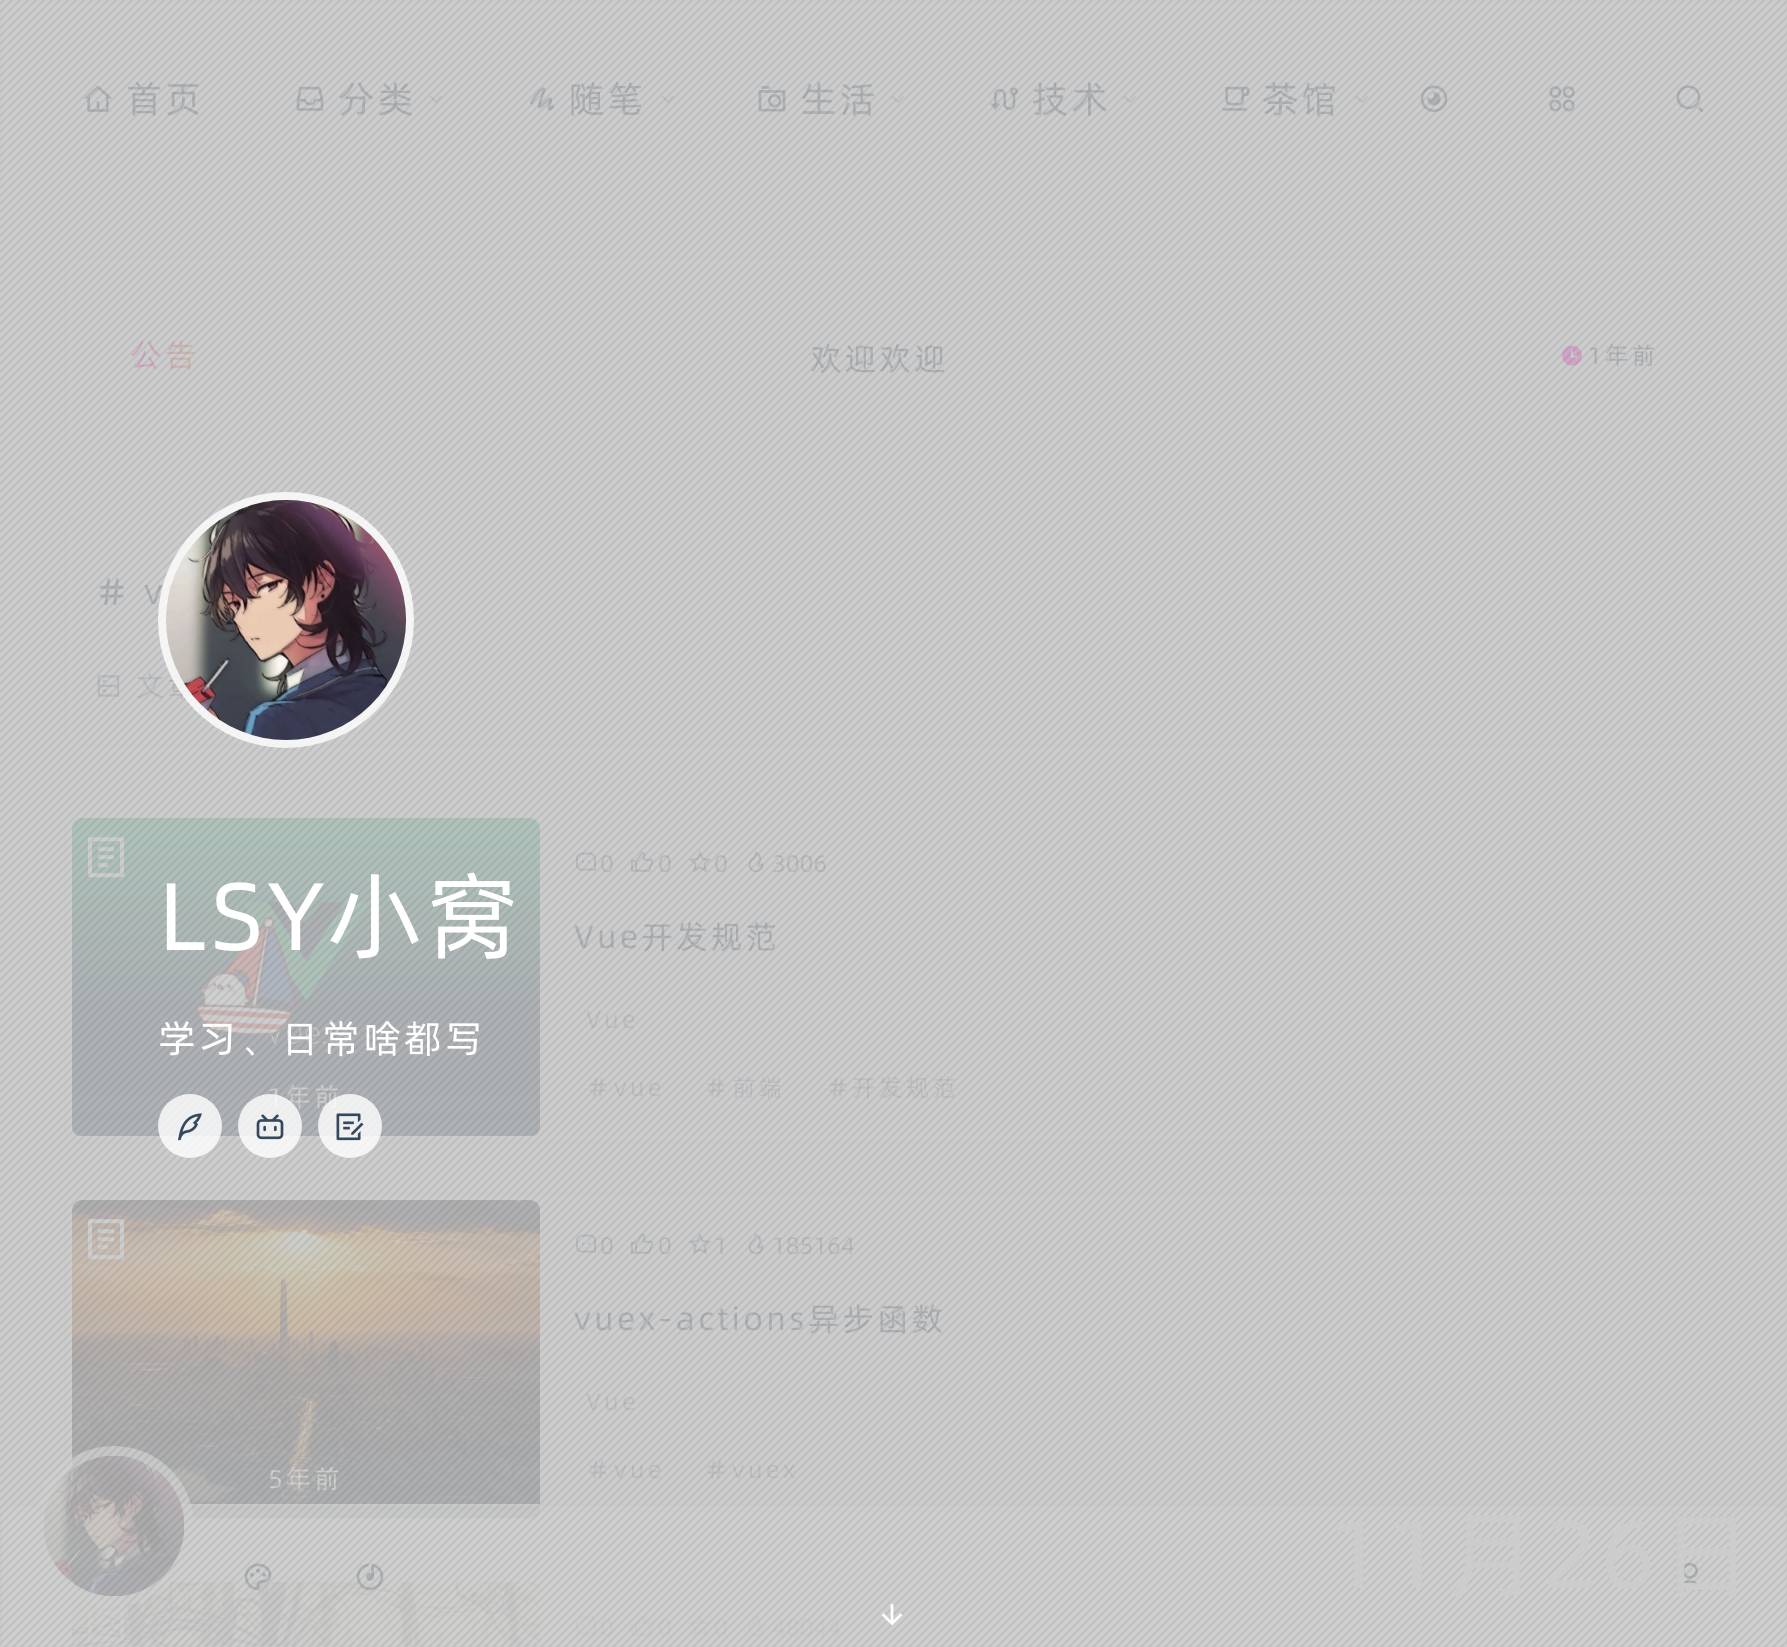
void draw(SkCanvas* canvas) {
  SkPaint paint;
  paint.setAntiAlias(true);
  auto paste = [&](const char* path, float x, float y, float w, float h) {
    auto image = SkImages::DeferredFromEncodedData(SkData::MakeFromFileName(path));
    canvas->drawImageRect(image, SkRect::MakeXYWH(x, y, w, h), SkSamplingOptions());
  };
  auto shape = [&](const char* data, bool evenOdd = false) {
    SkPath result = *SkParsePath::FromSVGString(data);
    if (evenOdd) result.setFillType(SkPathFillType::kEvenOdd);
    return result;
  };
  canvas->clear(0xfffdfdfe);
  paint.setStroke(true);
  paint.setStrokeWidth(2);
  paint.setColor(0xfffbfbfb);
  canvas->drawPath(shape("M1 1H1787V180C1787 188.5 1780.5 195 1772 195H16C7.5 195 1 188.5 1 180Z"), paint);
  paste("img/1.png", 83, 85, 30, 27);
  paste("img/2.png", 128, 81, 71, 35);
  paste("img/3.png", 296, 86, 28, 25);
  paste("img/4.png", 339, 82, 73, 34);
  paste("img/5.png", 429, 95, 14, 9);
  paste("img/6.png", 530, 87, 24, 24);
  paste("img/7.png", 571, 82, 71, 34);
  paste("img/5.png", 661, 95, 14, 9);
  paste("img/8.png", 758, 86, 28, 26);
  paste("img/9.png", 802, 82, 72, 34);
  paste("img/5.png", 891, 95, 14, 9);
  paste("img/10.png", 990, 87, 28, 24);
  paste("img/11.png", 1032, 82, 75, 34);
  paste("img/5.png", 1123, 95, 14, 9);
  paste("img/12.png", 1222, 86, 28, 25);
  paste("img/13.png", 1263, 82, 72, 35);
  paste("img/5.png", 1355, 95, 14, 9);
  paste("img/14.png", 1420, 85, 28, 28);
  paste("img/15.png", 1549, 86, 26, 26);
  paste("img/16.png", 1676, 85, 28, 28);
  canvas->drawRoundRect(SkRect::MakeXYWH(65, 257, 1658, 194), 15, 15, paint);
  paste("img/17.png", 131, 340, 64, 30);
  paste("img/18.png", 810, 344, 135, 30);
  paste("img/19.png", 1562, 345, 20, 21);
  paste("img/20.png", 1590, 344, 64, 23);
  canvas->drawRoundRect(SkRect::MakeXYWH(65, 517, 1658, 228), 15, 15, paint);
  paste("img/21.png", 99, 578, 25, 27);
  paste("img/22.png", 144, 585, 28, 19);
  paste("img/23.png", 97, 675, 23, 22);
  paste("img/24.png", 137, 672, 56, 28);
  canvas->drawRoundRect(SkRect::MakeXYWH(65, 811, 1658, 332), 15, 15, paint);
  paste("img/25.png", 72, 818, 468, 318);
  paste("img/27.png", 88, 837, 36, 41);
  paint.setStroke(false);
  {
    const SkColor colors[] = {0xb3d6dbdf, 0x33d6dbdf, 0x1ad6dbdf, 0x00d6dbdf};
    const float stops[] = {0, 0.3f, 0.4f, 1};
    const SkPoint ends[] = {{306, 1136}, {306, 818}};
    paint.setShader(SkGradientShader::MakeLinear(ends, colors, stops, 4, SkTileMode::kClamp));
    paint.setAlpha(255);
  }
  canvas->drawRoundRect(SkRect::MakeXYWH(72, 818, 468, 318), 8, 8, paint);
  paste("img/26.png", 270, 1084, 68, 25);
  paste("img/28.png", 576, 852, 20, 19);
  paste("img/29.png", 601, 855, 12, 18);
  paste("img/30.png", 631, 851, 22, 21);
  paste("img/29.png", 659, 855, 12, 18);
  paste("img/31.png", 688, 851, 24, 22);
  paste("img/29.png", 715, 855, 12, 18);
  paste("img/32.png", 748, 851, 16, 22);
  paste("img/33.png", 773, 855, 53, 18);
  paste("img/34.png", 574, 922, 201, 30);
  paste("img/35.png", 586, 1011, 49, 18);
  paste("img/36.png", 590, 1078, 16, 19);
  paste("img/37.png", 614, 1082, 47, 15);
  paste("img/36.png", 708, 1078, 16, 19);
  paste("img/38.png", 733, 1076, 48, 23);
  paste("img/36.png", 830, 1078, 16, 19);
  paste("img/39.png", 853, 1076, 102, 23);
  paint.setStroke(true);
  paint.setShader(nullptr);
  paint.setColor(0xfffbfbfb);
  canvas->drawRoundRect(SkRect::MakeXYWH(65, 1193, 1658, 332), 15, 15, paint);
  paste("img/40.png", 72, 1200, 468, 318);
  paste("img/42.png", 88, 1219, 36, 41);
  paint.setStroke(false);
  {
    const SkColor colors[] = {0xb3d6dbdf, 0x33d6dbdf, 0x1ad6dbdf, 0x00d6dbdf};
    const float stops[] = {0, 0.3f, 0.4f, 1};
    const SkPoint ends[] = {{306, 1518}, {306, 1200}};
    paint.setShader(SkGradientShader::MakeLinear(ends, colors, stops, 4, SkTileMode::kClamp));
    paint.setAlpha(255);
  }
  canvas->drawRoundRect(SkRect::MakeXYWH(72, 1200, 468, 318), 8, 8, paint);
  paste("img/41.png", 270, 1466, 68, 25);
  paste("img/28.png", 576, 1234, 20, 19);
  paste("img/29.png", 601, 1237, 12, 18);
  paste("img/30.png", 631, 1233, 22, 21);
  paste("img/29.png", 659, 1237, 12, 18);
  paste("img/31.png", 688, 1233, 24, 22);
  paste("img/43.png", 716, 1237, 7, 17);
  paste("img/32.png", 748, 1233, 16, 22);
  paste("img/44.png", 774, 1237, 80, 18);
  paste("img/45.png", 574, 1304, 368, 30);
  paste("img/35.png", 586, 1393, 49, 18);
  paste("img/36.png", 590, 1460, 16, 19);
  paste("img/37.png", 614, 1464, 47, 15);
  paste("img/36.png", 708, 1460, 16, 19);
  paste("img/46.png", 732, 1464, 63, 15);
  paint.setStroke(true);
  paint.setShader(nullptr);
  paint.setColor(0xfffbfbfb);
  canvas->drawRoundRect(SkRect::MakeXYWH(65, 1575, 1658, 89), 15, 15, paint);
  paste("img/47.png", 72, 1582, 468, 64);
  paste("img/48.png", 88, 1601, 36, 41);
  paste("img/49.png", 576, 1616, 20, 19);
  paste("img/50.png", 601, 1619, 12, 18);
  paste("img/51.png", 631, 1615, 22, 21);
  paste("img/50.png", 659, 1619, 12, 18);
  paste("img/52.png", 688, 1615, 24, 22);
  paste("img/50.png", 715, 1619, 12, 18);
  paste("img/53.png", 748, 1615, 16, 22);
  paste("img/54.png", 772, 1619, 68, 18);
  paste("img/55.png", 195, 916, 102, 120);
  paint.setStroke(false);
  paint.setColor(0xccffffff);
  canvas->drawPath(shape("M16 1505H1772C1780.5 1505 1787 1511.5 1787 1520V1647H1V1520C1 1511.5 7.5 1505 16 1505Z"), paint);
  paint.setStroke(true);
  paint.setColor(0xfffbfbfb);
  canvas->drawPath(shape("M16 1505H1772C1780.5 1505 1787 1511.5 1787 1520V1647H1V1520C1 1511.5 7.5 1505 16 1505Z"), paint);
  paint.setStroke(false);
  paint.setColor(0xccffffff);
  canvas->drawCircle(114, 1526, 80, paint);
  paste("img/56.png", 44, 1456, 140, 140);
  paste("img/57.png", 244, 1563, 28, 28);
  paste("img/58.png", 356, 1563, 28, 28);
  paste("img/59.png", 1684, 1562, 17, 29);
  paste("img/60.png", 0, 0, 1787, 1647);
  paste("img/61.png", 1337, 1515, 400, 82);
  canvas->drawCircle(286, 620, 128, paint);
  paste("img/62.png", 166, 500, 240, 240);
  paste("img/63.png", 166, 872, 348, 87);
  paste("img/64.png", 160, 1021, 319, 36);
  canvas->drawCircle(190, 1126, 32, paint);
  paste("img/65.png", 178, 1113, 24, 28);
  canvas->drawCircle(270, 1126, 32, paint);
  paste("img/66.png", 256, 1114, 28, 26);
  canvas->drawCircle(350, 1126, 32, paint);
  paste("img/67.png", 336, 1113, 28, 28);
  paste("img/68.png", 881, 1604, 22, 22);
}
